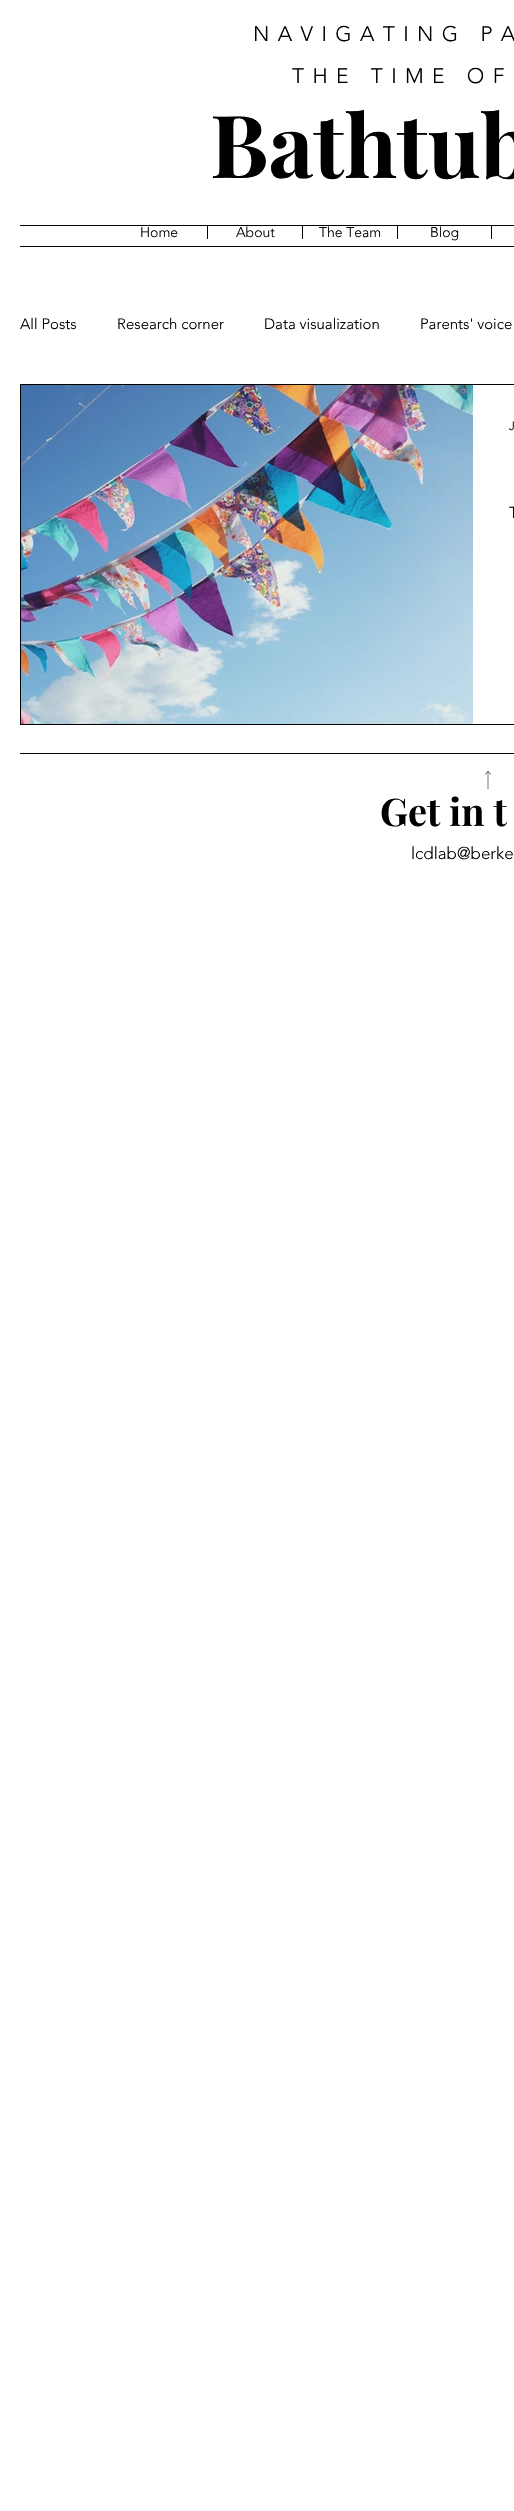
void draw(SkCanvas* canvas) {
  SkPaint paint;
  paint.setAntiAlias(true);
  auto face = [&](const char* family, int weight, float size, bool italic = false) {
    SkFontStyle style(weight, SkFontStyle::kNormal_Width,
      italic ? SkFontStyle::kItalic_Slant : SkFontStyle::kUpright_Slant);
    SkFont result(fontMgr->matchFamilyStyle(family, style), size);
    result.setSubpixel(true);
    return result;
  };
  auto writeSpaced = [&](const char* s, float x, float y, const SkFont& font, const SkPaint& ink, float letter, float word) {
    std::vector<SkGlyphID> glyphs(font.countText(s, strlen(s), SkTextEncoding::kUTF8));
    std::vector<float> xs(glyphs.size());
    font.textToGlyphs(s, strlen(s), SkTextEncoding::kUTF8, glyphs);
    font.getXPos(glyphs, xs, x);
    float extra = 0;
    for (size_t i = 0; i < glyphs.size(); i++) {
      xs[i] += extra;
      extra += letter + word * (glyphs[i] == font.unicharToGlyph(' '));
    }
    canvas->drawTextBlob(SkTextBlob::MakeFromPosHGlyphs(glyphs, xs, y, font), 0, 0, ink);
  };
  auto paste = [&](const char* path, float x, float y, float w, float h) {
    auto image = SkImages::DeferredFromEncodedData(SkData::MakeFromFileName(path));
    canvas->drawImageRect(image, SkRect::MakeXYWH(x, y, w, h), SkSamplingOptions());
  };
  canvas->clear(0xffffffff);
  {
    const struct { float x, y, w, h; SkColor color; } items[] = {
      {20, 225, 494, 1, 0xff000000},
      {207, 226, 1, 13, 0xff000000},
      {302, 226, 1, 13, 0xff000000},
      {397, 226, 1, 13, 0xff000000},
      {491, 226, 1, 13, 0xff000000},
      {20, 246, 494, 1, 0xff000000},
    };
    for (auto [x, y, w, h, color] : items) {
      paint.setColor(color);
      canvas->drawRect(SkRect::MakeXYWH(x, y, w, h), paint);
    }
  }
  paint.setStroke(true);
  paint.setStrokeWidth(1);
  canvas->drawRect(SkRect::MakeXYWH(20.5f, 384.5f, 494, 340), paint);
  paste("img/1.png", 21, 385, 452, 339);
  paint.setStroke(false);
  canvas->drawRect(SkRect::MakeXYWH(20, 753, 494, 1), paint);
  paste("img/2.png", 485, 771, 6, 18);
  auto f0 = face("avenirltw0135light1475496", 300, 21);
  writeSpaced("NAVIGATING PA", 253, 41, f0, paint, 8.4f, 0);
  writeSpaced("THE TIME OF", 292, 83, f0, paint, 8.4f, 0);
  auto f1 = face("Playfair Display", 700, 87);
  canvas->drawString("Bathtub", 210, 178, f1, paint);
  auto f2 = face("avenirltw0135light1475496", 300, 14);
  {
    const struct { const char* s; float x, y; } items[] = {
      {"Home", 140, 237},
      {"About", 236, 237},
      {"The Team", 319, 237},
      {"Blog", 430, 237},
    };
    for (auto [s, x, y] : items) {
      canvas->drawString(s, x, y, f2, paint);
    }
  }
  auto f3 = face("avenirltw0135light1475496", 300, 15);
  {
    const struct { const char* s; float x, y; } items[] = {
      {"All Posts", 20, 329},
      {"Research corner", 117, 329},
      {"Data visualization", 264, 329},
      {"Parents' voice", 420, 329},
    };
    for (auto [s, x, y] : items) {
      canvas->drawString(s, x, y, f3, paint);
    }
  }
  auto f4 = face("avenirltw0135light1475496", 300, 12);
  canvas->drawString("J", 509, 430, f4, paint);
  auto f5 = face("avenirltw0135light1475496", 300, 16);
  canvas->drawString("T", 509, 518, f5, paint);
  auto f6 = face("Playfair Display", 700, 38);
  canvas->drawString("Get in t", 380, 826, f6, paint);
  auto f7 = face("avenirltw0135light1475496", 300, 17);
  canvas->drawString("lcdlab@berke", 411, 859, f7, paint);
}
